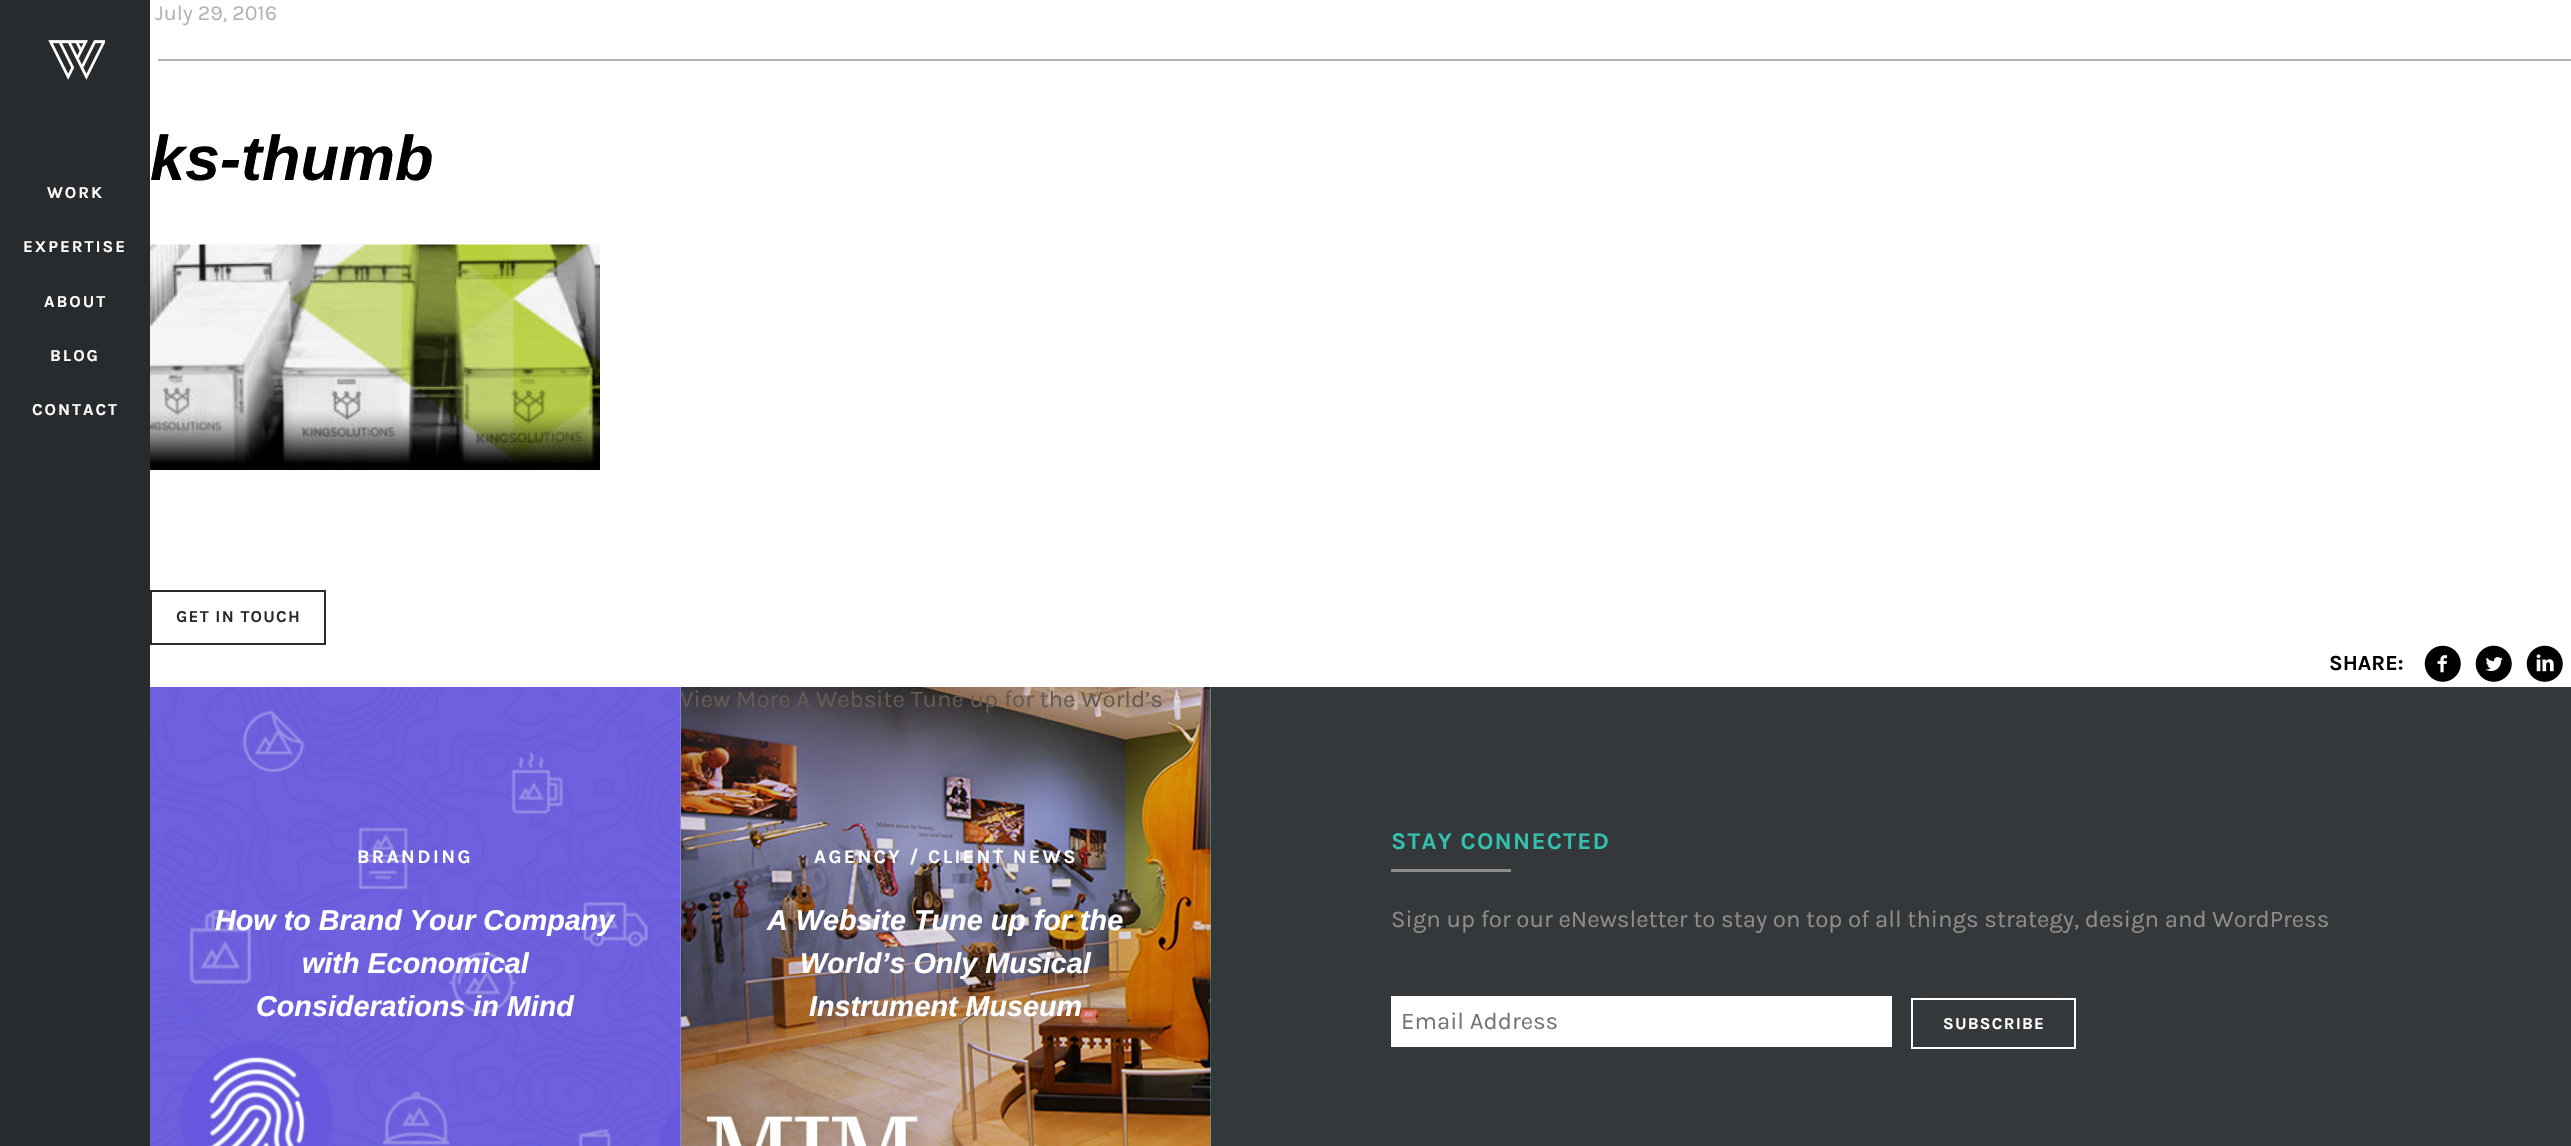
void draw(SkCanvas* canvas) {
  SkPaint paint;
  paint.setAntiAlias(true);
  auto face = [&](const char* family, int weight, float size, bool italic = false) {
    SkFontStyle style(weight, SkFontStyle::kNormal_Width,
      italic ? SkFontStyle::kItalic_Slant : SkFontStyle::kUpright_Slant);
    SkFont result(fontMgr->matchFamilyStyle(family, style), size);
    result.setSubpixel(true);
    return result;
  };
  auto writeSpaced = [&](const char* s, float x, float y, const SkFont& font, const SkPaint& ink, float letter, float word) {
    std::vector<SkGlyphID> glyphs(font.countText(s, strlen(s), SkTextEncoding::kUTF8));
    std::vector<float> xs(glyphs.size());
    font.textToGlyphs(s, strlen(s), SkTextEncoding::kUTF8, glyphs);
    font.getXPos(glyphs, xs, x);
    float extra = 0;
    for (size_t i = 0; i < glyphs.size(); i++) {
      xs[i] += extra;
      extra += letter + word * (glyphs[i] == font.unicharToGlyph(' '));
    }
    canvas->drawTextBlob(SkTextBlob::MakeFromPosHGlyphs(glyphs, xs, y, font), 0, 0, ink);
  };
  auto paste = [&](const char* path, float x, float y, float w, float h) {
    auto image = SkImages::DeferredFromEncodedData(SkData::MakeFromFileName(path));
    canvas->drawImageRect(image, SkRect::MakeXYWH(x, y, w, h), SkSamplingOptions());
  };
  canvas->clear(0xffffffff);
  paint.setColor(0xff282b2e);
  canvas->drawRect(SkRect::MakeXYWH(0, 0, 150, 1146), paint);
  paste("img/1.png", 48, 40, 57, 40);
  paint.setColor(0xffb4b4b4);
  canvas->drawRect(SkRect::MakeXYWH(158, 59, 2413, 2), paint);
  paste("img/2.png", 150, 244, 450, 226);
  paint.setStroke(true);
  paint.setStrokeWidth(2);
  paint.setColor(0xff282b2e);
  canvas->drawRect(SkRect::MakeXYWH(151, 591, 174, 53), paint);
  paste("img/3.png", 2424, 645, 37, 37);
  paste("img/4.png", 2475, 645, 37, 37);
  paste("img/5.png", 2526, 645, 37, 37);
  paste("img/6.png", 150, 687, 531, 459);
  paint.setStroke(false);
  paint.setColor(0xff35bfae);
  canvas->drawRect(SkRect::MakeXYWH(1210, 687, 1, 459), paint);
  paste("img/7.png", 680, 687, 531, 459);
  {
    const struct { float x, y, w, h; SkColor color; } items[] = {
      {1211, 687, 1360, 459, 0xff35383b},
      {1391, 869, 120, 3, 0xff8d8d8c},
      {1391, 996, 501, 51, 0xffffffff},
    };
    for (auto [x, y, w, h, color] : items) {
      paint.setColor(color);
      canvas->drawRect(SkRect::MakeXYWH(x, y, w, h), paint);
    }
  }
  paint.setStroke(true);
  canvas->drawRect(SkRect::MakeXYWH(1912, 999, 163, 49), paint);
  auto f0 = face("Karla", 700, 16.75f);
  paint.setStroke(false);
  {
    const struct { const char* s; float x, y; } items[] = {
      {"WORK", 47, 198},
      {"EXPERTISE", 23, 252},
      {"ABOUT", 44, 307},
      {"BLOG", 50, 361},
      {"CONTACT", 32, 415},
    };
    for (auto [s, x, y] : items) {
      writeSpaced(s, x, y, f0, paint, 2, 0);
    }
  }
  auto f1 = face("Karla", 400, 21.5f);
  paint.setColor(0xffb4b4b4);
  canvas->drawString("July 29, 2016", 155, 20, f1, paint);
  auto f2 = face("Liberation Sans", 700, 63, true);
  paint.setColor(0xff000000);
  canvas->drawString("ks-thumb", 150, 180, f2, paint);
  paint.setColor(0xff282b2e);
  writeSpaced("GET IN TOUCH", 176, 622, f0, paint, 1.25f, 0);
  auto f3 = face("Karla", 700, 21.5f);
  paint.setColor(0xff000000);
  canvas->drawString("SHARE:", 2329, 670, f3, paint);
  auto f4 = face("Karla", 700, 19.25f);
  paint.setColor(0xffffffff);
  writeSpaced("BRANDING", 357, 863, f4, paint, 2.4f, 0);
  auto f5 = face("Liberation Sans", 700, 28.75f, true);
  {
    const struct { const char* s; float x, y; } items[] = {
      {"How to Brand Your Company", 215, 930},
      {"with Economical", 302, 973},
      {"Considerations in Mind", 256, 1016},
    };
    for (auto [s, x, y] : items) {
      canvas->drawString(s, x, y, f5, paint);
    }
  }
  auto f6 = face("Karla", 400, 24);
  paint.setColor(0xff665a55);
  canvas->drawString("View More A Website Tune up for the World’s", 680, 707, f6, paint);
  paint.setColor(0xffffffff);
  writeSpaced("AGENCY / CLIENT NEWS", 814, 863, f4, paint, 2.4f, 0);
  {
    const struct { const char* s; float x, y; } items[] = {
      {"A Website Tune up for the", 767, 930},
      {"World’s Only Musical", 800, 973},
      {"Instrument Museum", 809, 1016},
    };
    for (auto [s, x, y] : items) {
      canvas->drawString(s, x, y, f5, paint);
    }
  }
  auto f7 = face("Karla", 700, 24);
  paint.setColor(0xff35bfae);
  writeSpaced("STAY CONNECTED", 1391, 849, f7, paint, 1.25f, 0);
  paint.setColor(0xff8d8d8c);
  canvas->drawString("Sign up for our eNewsletter to stay on top of all things strategy, design and WordPress", 1391, 927, f6, paint);
  paint.setColor(0xff757575);
  canvas->drawString("Email Address", 1401, 1029, f6, paint);
  paint.setColor(0xffffffff);
  writeSpaced("SUBSCRIBE", 1943, 1029, f0, paint, 1.25f, 0);
}
